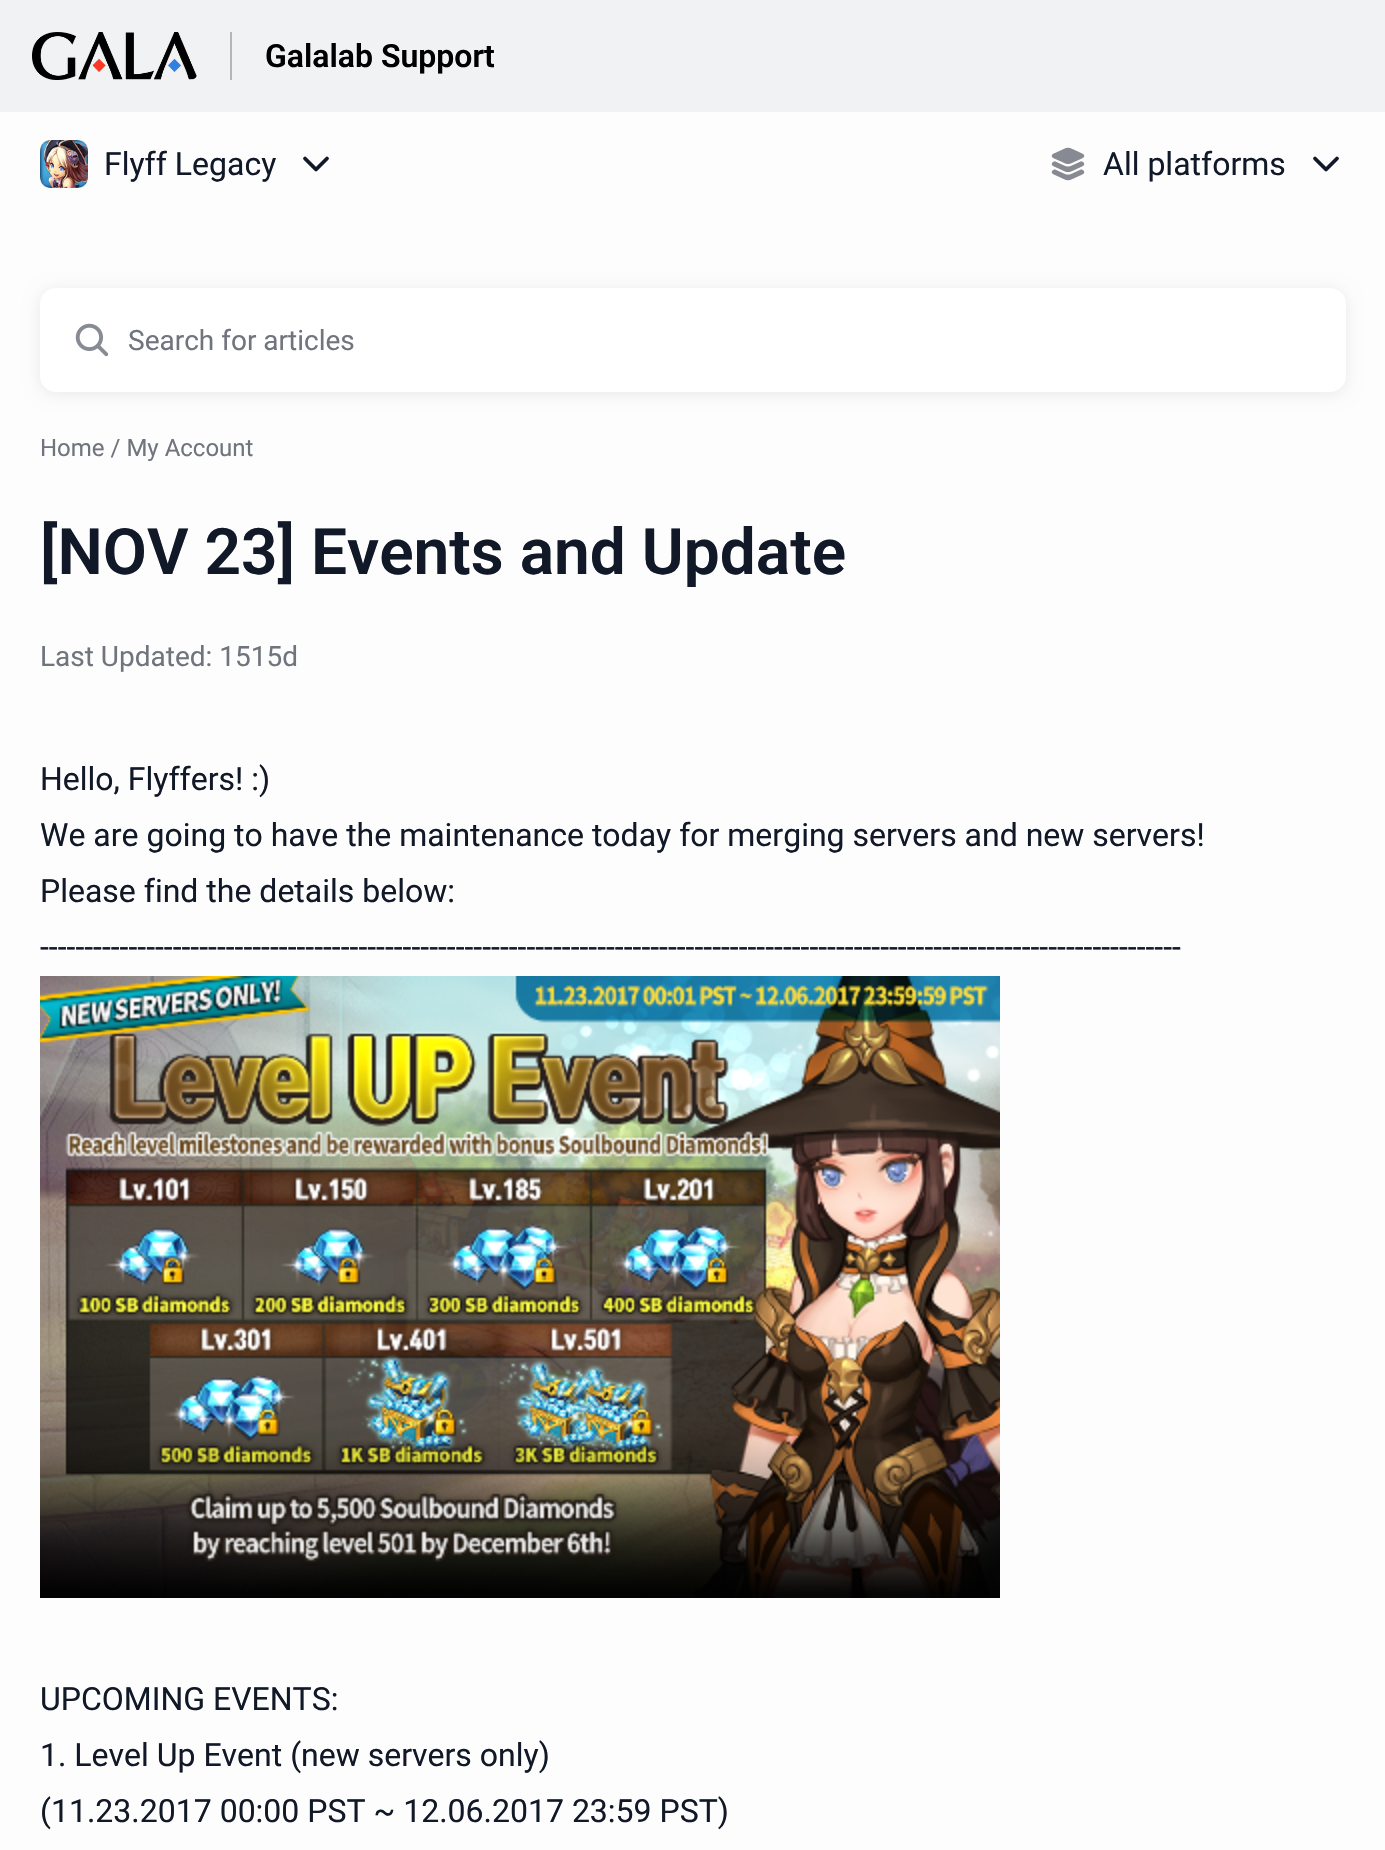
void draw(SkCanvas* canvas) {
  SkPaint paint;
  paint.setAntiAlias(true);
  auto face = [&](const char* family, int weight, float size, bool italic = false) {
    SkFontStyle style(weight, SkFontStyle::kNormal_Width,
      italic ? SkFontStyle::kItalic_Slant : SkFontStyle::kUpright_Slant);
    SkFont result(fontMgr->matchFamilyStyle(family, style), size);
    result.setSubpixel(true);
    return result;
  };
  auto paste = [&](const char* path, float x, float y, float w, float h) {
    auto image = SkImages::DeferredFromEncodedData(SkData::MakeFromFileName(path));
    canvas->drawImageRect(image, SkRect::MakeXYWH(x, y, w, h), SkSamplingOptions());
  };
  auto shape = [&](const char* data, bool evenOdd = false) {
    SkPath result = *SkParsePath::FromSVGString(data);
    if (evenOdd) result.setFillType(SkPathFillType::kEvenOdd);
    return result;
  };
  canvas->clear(0xfffdfdfd);
  paint.setColor(0xfff0f2f4);
  canvas->drawRect(SkRect::MakeXYWH(0, 0, 1385, 112), paint);
  paint.setColor(0xffb4b6b7);
  canvas->drawRect(SkRect::MakeXYWH(230, 32, 2, 48), paint);
  paste("img/1.png", 32, 32, 165, 48);
  paste("img/2.png", 40, 140, 48, 48);
  paint.setStroke(true);
  paint.setStrokeWidth(3.8f);
  paint.setStrokeCap(SkPaint::kRound_Cap);
  paint.setStrokeJoin(SkPaint::kRound_Join);
  paint.setColor(0xff111827);
  canvas->drawPath(shape("M305 158.5L316 169.5L327 158.5"), paint);
  paste("img/3.png", 1051, 147, 34, 34);
  canvas->drawPath(shape("M1315 158.5L1326 169.5L1337 158.5"), paint);
  paint.setStroke(false);
  paint.setColor(0x14000000);
  paint.setMaskFilter(SkMaskFilter::MakeBlur(kNormal_SkBlurStyle, 8));
  canvas->drawRoundRect(SkRect::MakeXYWH(40, 290, 1306, 104), 16, 16, paint);
  paint.setMaskFilter(nullptr);
  paint.setColor(0xffffffff);
  canvas->drawRoundRect(SkRect::MakeXYWH(40, 288, 1306, 104), 16, 16, paint);
  paste("img/4.png", 75, 323, 34, 34);
  paste("img/5.png", 40, 976, 960, 622);
  auto f0 = face("Roboto", 600, 32);
  paint.setColor(0xff000000);
  canvas->drawString("Galalab Support", 265, 67, f0, paint);
  auto f1 = face("Roboto", 400, 32);
  paint.setColor(0xff111827);
  canvas->drawString("Flyff Legacy", 104, 175, f1, paint);
  canvas->drawString("All platforms", 1103, 175, f1, paint);
  auto f2 = face("Roboto", 400, 28);
  paint.setColor(0xff70747d);
  canvas->drawString("Search for articles", 128, 350, f2, paint);
  auto f3 = face("Roboto", 400, 24);
  canvas->drawString("Home / My Account", 40, 456, f3, paint);
  auto f4 = face("Roboto", 600, 64);
  paint.setColor(0xff111827);
  canvas->drawString("[NOV 23] Events and Update", 40, 574, f4, paint);
  paint.setColor(0xff70747d);
  canvas->drawString("Last Updated: 1515d", 40, 666, f2, paint);
  paint.setColor(0xff111827);
  {
    const struct { const char* s; float x, y; } items[] = {
      {"Hello, Flyffers! :)", 40, 790},
      {"We are going to have the maintenance today for merging servers and new servers!", 40, 846},
      {"Please find the details below:", 40, 902},
      {"---------------------------------------------------------------------------------------------------------------------------------", 40, 958},
      {"UPCOMING EVENTS:", 40, 1710},
      {"1. Level Up Event (new servers only)", 40, 1766},
      {"(11.23.2017 00:00 PST ~ 12.06.2017 23:59 PST)", 40, 1822},
    };
    for (auto [s, x, y] : items) {
      canvas->drawString(s, x, y, f1, paint);
    }
  }
}
